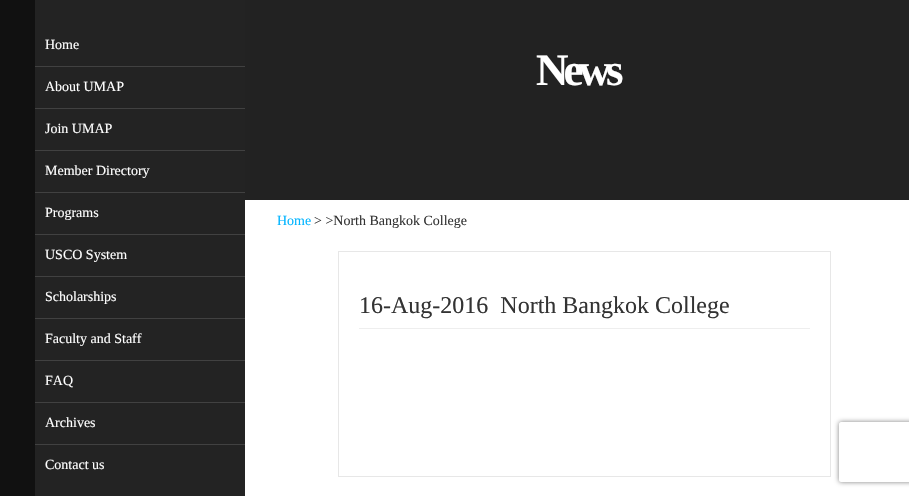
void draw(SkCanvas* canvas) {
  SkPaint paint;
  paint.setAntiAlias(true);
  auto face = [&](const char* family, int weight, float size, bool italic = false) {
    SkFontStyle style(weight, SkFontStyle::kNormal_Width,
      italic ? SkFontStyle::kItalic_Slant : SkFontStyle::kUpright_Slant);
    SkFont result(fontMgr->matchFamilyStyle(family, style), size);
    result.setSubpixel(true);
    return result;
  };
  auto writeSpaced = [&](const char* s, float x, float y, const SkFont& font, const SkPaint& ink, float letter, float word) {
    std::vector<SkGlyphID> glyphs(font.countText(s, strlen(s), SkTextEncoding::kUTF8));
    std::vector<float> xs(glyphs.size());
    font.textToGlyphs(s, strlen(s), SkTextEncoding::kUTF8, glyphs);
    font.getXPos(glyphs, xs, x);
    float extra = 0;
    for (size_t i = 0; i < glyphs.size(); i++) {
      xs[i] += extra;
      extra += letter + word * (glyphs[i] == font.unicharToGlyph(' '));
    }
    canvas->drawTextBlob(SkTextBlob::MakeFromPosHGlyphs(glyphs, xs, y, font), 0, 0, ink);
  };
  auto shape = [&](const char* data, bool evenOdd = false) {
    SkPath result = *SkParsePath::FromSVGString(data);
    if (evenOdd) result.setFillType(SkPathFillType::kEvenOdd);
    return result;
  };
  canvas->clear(0xffffffff);
  {
    const struct { float x, y, w, h; SkColor color; } items[] = {
      {0, 0, 35, 496, 0xff111111},
      {35, 0, 210, 496, 0xff232323},
      {35, 66, 210, 1, 0xff414141},
      {35, 108, 210, 1, 0xff414141},
      {35, 150, 210, 1, 0xff414141},
      {35, 192, 210, 1, 0xff414141},
      {35, 234, 210, 1, 0xff414141},
      {35, 276, 210, 1, 0xff414141},
      {35, 318, 210, 1, 0xff414141},
      {35, 360, 210, 1, 0xff414141},
      {35, 402, 210, 1, 0xff414141},
      {35, 444, 210, 1, 0xff414141},
      {245, 0, 664, 200, 0xff222222},
    };
    for (auto [x, y, w, h, color] : items) {
      paint.setColor(color);
      canvas->drawRect(SkRect::MakeXYWH(x, y, w, h), paint);
    }
  }
  paint.setStroke(true);
  paint.setStrokeWidth(1);
  paint.setColor(0xffe7e7e7);
  canvas->drawRect(SkRect::MakeXYWH(338.5f, 251.5f, 492, 225), paint);
  paint.setStroke(false);
  paint.setColor(0xffeeeeee);
  canvas->drawRect(SkRect::MakeXYWH(359, 328, 451, 1), paint);
  canvas->save();
  canvas->clipPath(shape("M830 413H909V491H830ZM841 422H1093C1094 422 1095 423 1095 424V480C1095 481 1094 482 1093 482H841C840 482 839 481 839 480V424C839 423 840 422 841 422Z", true), true);
  paint.setColor(0xff808080);
  paint.setMaskFilter(SkMaskFilter::MakeBlur(kNormal_SkBlurStyle, 2.5f));
  canvas->drawRoundRect(SkRect::MakeXYWH(839, 422, 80, 60), 2, 2, paint);
  paint.setMaskFilter(nullptr);
  canvas->restore();
  auto f0 = face("Liberation Serif", 400, 14);
  paint.setColor(0xffffffff);
  {
    const struct { const char* s; float x, y; } items[] = {
      {"Home", 45, 49},
      {"About UMAP", 45, 91},
      {"Join UMAP", 45, 133},
      {"Member Directory", 45, 175},
      {"Programs", 45, 217},
      {"USCO System", 45, 259},
      {"Scholarships", 45, 301},
      {"Faculty and Staff", 45, 343},
      {"FAQ", 45, 385},
      {"Archives", 45, 427},
      {"Contact us", 45, 469},
    };
    for (auto [s, x, y] : items) {
      canvas->drawString(s, x, y, f0, paint);
    }
  }
  auto f1 = face("Liberation Serif", 700, 45);
  writeSpaced("News", 536, 85, f1, paint, -5, 0);
  paint.setColor(0xff00b4ff);
  canvas->drawString("Home", 277, 225, f0, paint);
  paint.setColor(0xff333333);
  canvas->drawString("> >North Bangkok College", 314, 225, f0, paint);
  auto f2 = face("Liberation Serif", 400, 24);
  canvas->drawString("16-Aug-2016  North Bangkok College", 359, 313, f2, paint);
}
